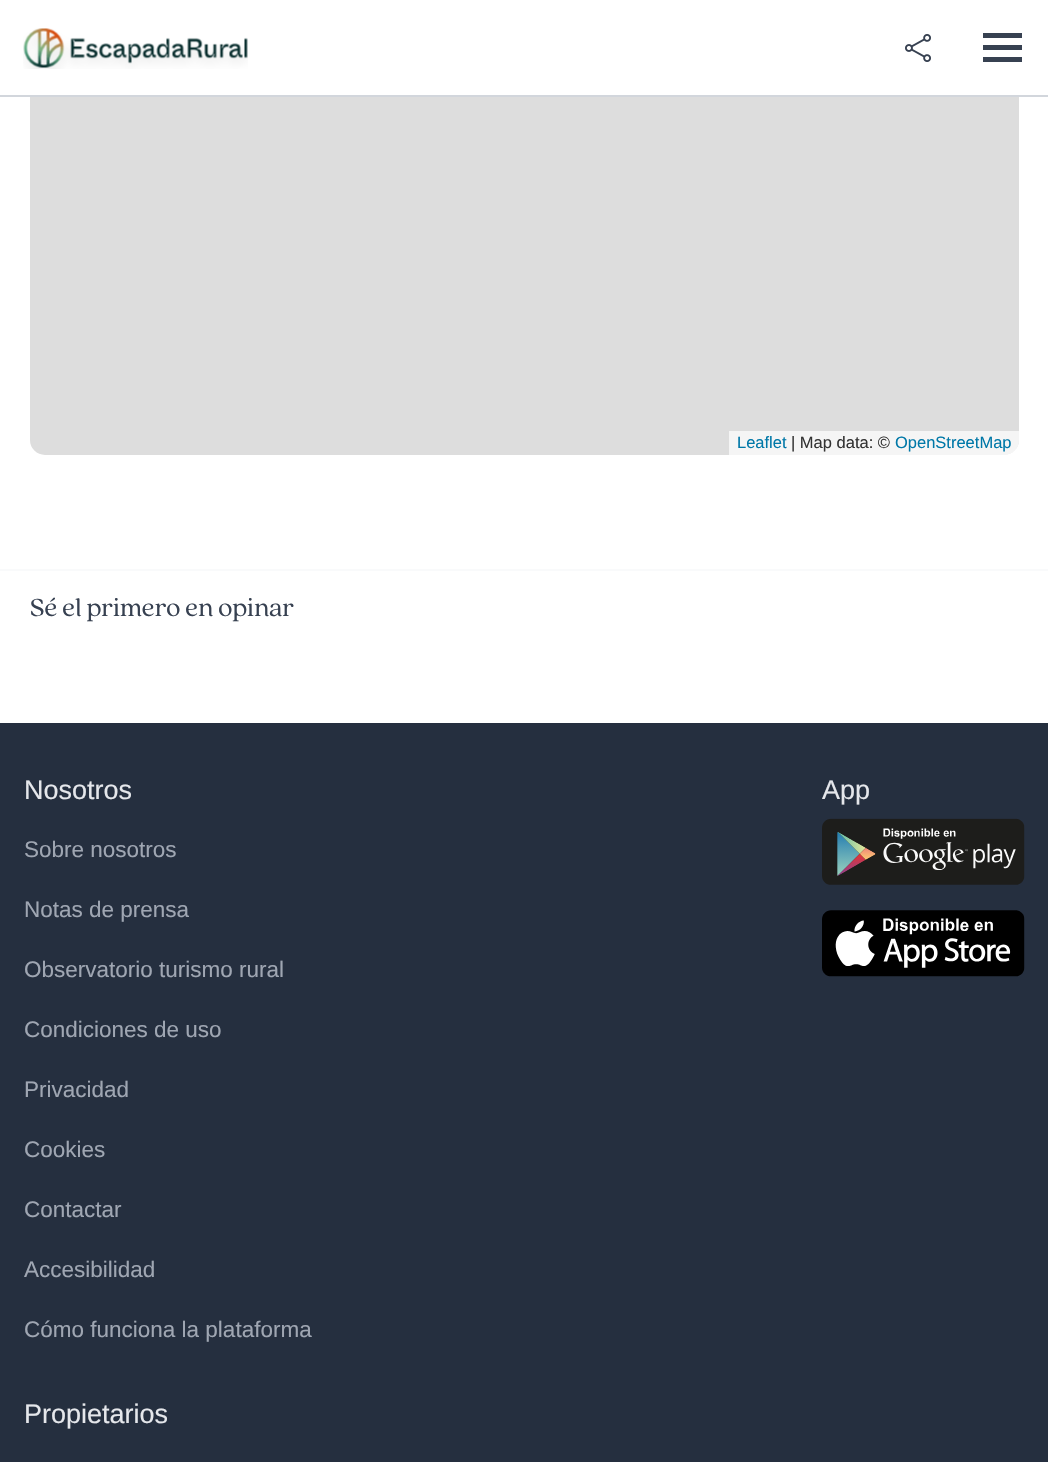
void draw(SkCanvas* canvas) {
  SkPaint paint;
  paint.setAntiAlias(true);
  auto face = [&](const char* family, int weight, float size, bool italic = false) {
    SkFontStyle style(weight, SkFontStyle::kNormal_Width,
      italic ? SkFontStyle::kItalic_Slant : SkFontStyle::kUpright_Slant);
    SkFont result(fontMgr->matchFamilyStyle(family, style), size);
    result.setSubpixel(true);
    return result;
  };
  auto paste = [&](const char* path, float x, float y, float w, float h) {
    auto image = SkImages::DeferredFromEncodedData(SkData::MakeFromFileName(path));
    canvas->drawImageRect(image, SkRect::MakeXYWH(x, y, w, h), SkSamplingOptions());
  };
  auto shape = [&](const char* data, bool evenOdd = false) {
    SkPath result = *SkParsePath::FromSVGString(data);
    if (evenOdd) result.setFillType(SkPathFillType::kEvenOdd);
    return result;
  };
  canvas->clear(0xffffffff);
  paint.setColor(0xffdddddd);
  canvas->drawRoundRect(SkRect::MakeXYWH(30, -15, 989, 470), 15, 15, paint);
  paint.setColor(0xffffffff);
  canvas->drawRect(SkRect::MakeXYWH(30, 0, 989, 95), paint);
  paint.setColor(0xffd2d6dc);
  canvas->drawRect(SkRect::MakeXYWH(0, 95, 1048, 2), paint);
  paste("img/1.png", 23, 28, 225, 41);
  paste("img/2.png", 905, 33, 26, 29);
  {
    const struct { float x, y, w, h; SkColor color; } items[] = {
      {983, 33, 39, 5, 0xff374151},
      {983, 45, 39, 5, 0xff374151},
      {983, 57, 39, 5, 0xff374151},
    };
    for (auto [x, y, w, h, color] : items) {
      paint.setColor(color);
      canvas->drawRect(SkRect::MakeXYWH(x, y, w, h), paint);
    }
  }
  paint.setColor(0xb3ffffff);
  canvas->drawPath(shape("M729 431H1019V440C1019 448.5 1012.5 455 1004 455H729Z"), paint);
  paint.setColor(0xfff9fafb);
  canvas->drawRect(SkRect::MakeXYWH(0, 569, 1048, 2), paint);
  paint.setColor(0xff252f3f);
  canvas->drawRect(SkRect::MakeXYWH(0, 723, 1048, 739), paint);
  paste("img/3.png", 822, 818, 203, 67);
  paste("img/4.png", 822, 910, 203, 67);
  auto f0 = face("Liberation Sans", 400, 16.5f);
  paint.setColor(0xff0078a8);
  canvas->drawString("Leaflet", 737, 448, f0, paint);
  paint.setColor(0xff333333);
  canvas->drawString("| Map data: ©", 791, 448, f0, paint);
  paint.setColor(0xff0078a8);
  canvas->drawString("OpenStreetMap", 895, 448, f0, paint);
  auto f1 = face("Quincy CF", 400, 27);
  paint.setColor(0xff374151);
  canvas->drawString("Sé el primero en opinar", 30, 616, f1, paint);
  auto f2 = face("Liberation Sans", 400, 27);
  paint.setColor(0xffe5e7eb);
  canvas->drawString("Nosotros", 24, 799, f2, paint);
  auto f3 = face("Liberation Sans", 400, 22.5f);
  paint.setColor(0xff9fa6b2);
  {
    const struct { const char* s; float x, y; } items[] = {
      {"Sobre nosotros", 24, 857},
      {"Notas de prensa", 24, 917},
      {"Observatorio turismo rural", 24, 977},
      {"Condiciones de uso", 24, 1037},
      {"Privacidad", 24, 1097},
      {"Cookies", 24, 1157},
      {"Contactar", 24, 1217},
      {"Accesibilidad", 24, 1277},
      {"Cómo funciona la plataforma", 24, 1337},
    };
    for (auto [s, x, y] : items) {
      canvas->drawString(s, x, y, f3, paint);
    }
  }
  paint.setColor(0xffe5e7eb);
  canvas->drawString("Propietarios", 24, 1423, f2, paint);
  canvas->drawString("App", 822, 799, f2, paint);
}
